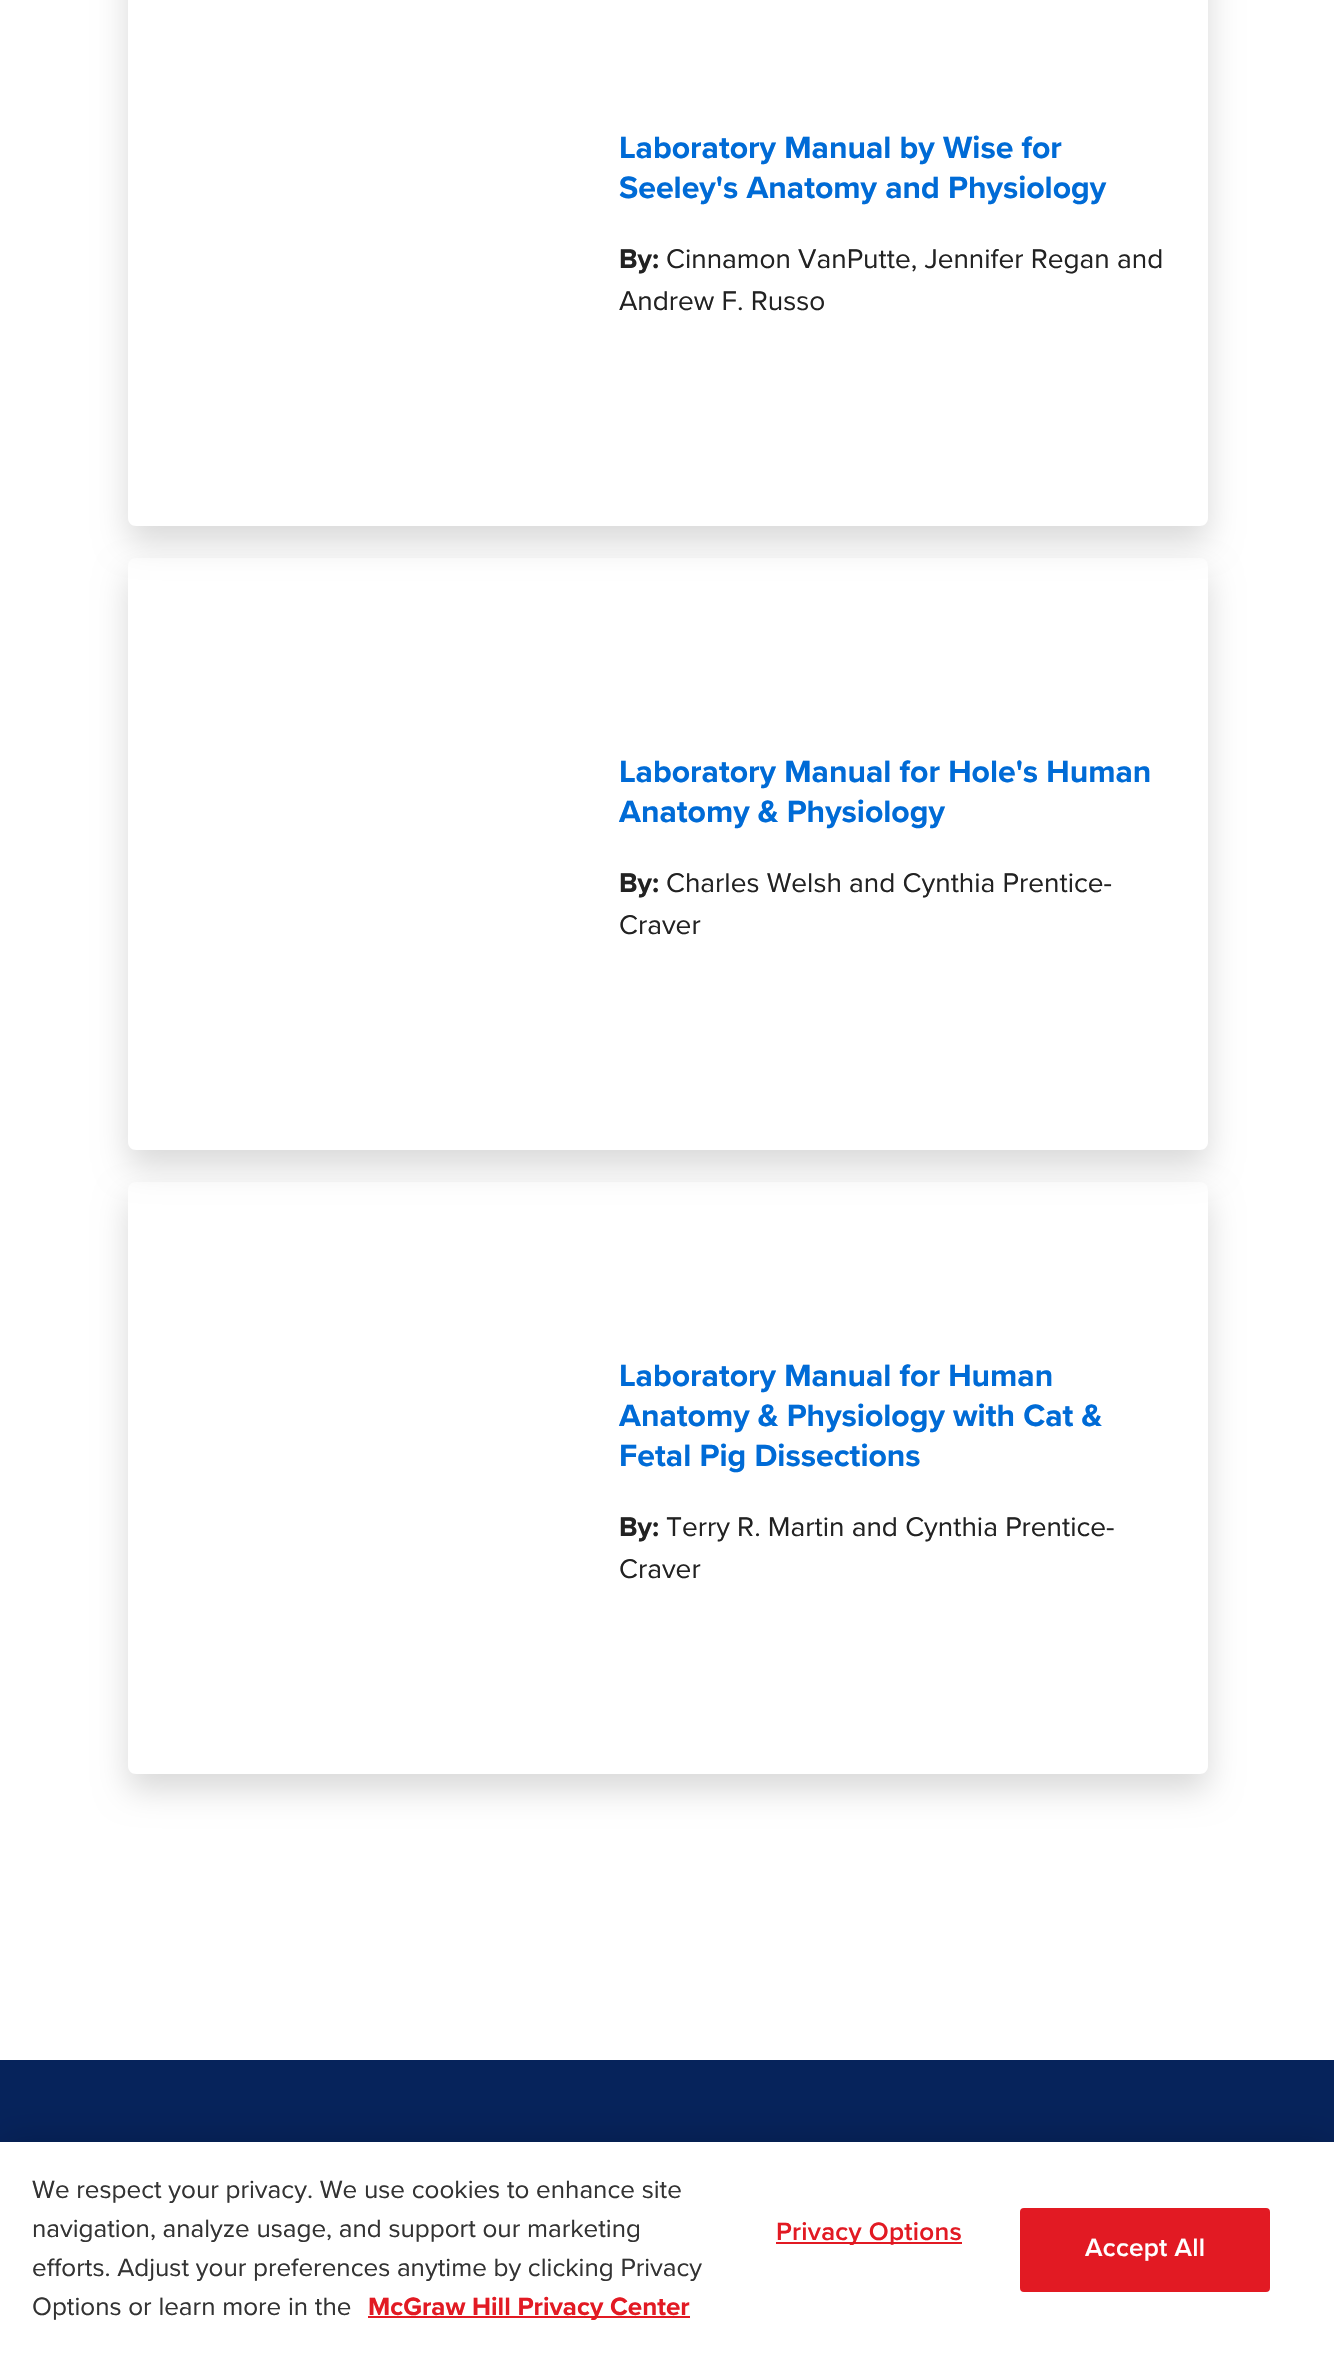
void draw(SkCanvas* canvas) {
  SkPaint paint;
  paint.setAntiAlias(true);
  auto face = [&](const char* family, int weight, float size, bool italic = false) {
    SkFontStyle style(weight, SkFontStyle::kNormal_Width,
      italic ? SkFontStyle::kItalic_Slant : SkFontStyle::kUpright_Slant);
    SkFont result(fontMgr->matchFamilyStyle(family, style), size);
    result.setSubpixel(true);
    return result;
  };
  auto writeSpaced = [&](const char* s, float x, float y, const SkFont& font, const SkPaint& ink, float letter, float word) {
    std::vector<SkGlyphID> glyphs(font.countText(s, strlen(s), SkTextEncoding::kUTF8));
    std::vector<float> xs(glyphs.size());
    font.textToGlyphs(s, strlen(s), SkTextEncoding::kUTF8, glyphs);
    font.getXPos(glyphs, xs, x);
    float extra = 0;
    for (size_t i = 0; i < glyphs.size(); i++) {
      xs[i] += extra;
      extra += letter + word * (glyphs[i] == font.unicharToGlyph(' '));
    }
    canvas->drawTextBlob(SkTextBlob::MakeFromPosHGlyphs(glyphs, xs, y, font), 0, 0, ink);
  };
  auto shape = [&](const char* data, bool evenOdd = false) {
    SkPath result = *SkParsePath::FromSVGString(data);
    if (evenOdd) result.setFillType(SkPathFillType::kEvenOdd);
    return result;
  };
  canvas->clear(0xffffffff);
  canvas->save();
  canvas->clipPath(shape("M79 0H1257V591H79ZM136-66H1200C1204.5-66 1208-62.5 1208-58V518C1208 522.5 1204.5 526 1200 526H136C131.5 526 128 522.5 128 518V-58C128-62.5 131.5-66 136-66Z", true), true);
  paint.setColor(0x26000000);
  paint.setMaskFilter(SkMaskFilter::MakeBlur(kNormal_SkBlurStyle, 16));
  canvas->drawRoundRect(SkRect::MakeXYWH(128, -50, 1080, 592), 8, 8, paint);
  paint.setMaskFilter(nullptr);
  canvas->restore();
  canvas->save();
  canvas->clipPath(shape("M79 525H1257V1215H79ZM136 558H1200C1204.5 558 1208 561.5 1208 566V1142C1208 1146.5 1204.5 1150 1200 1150H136C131.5 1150 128 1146.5 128 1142V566C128 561.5 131.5 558 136 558Z", true), true);
  paint.setMaskFilter(SkMaskFilter::MakeBlur(kNormal_SkBlurStyle, 16));
  canvas->drawRoundRect(SkRect::MakeXYWH(128, 574, 1080, 592), 8, 8, paint);
  paint.setMaskFilter(nullptr);
  canvas->restore();
  canvas->save();
  canvas->clipPath(shape("M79 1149H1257V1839H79ZM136 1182H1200C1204.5 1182 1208 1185.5 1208 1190V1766C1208 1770.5 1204.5 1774 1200 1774H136C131.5 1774 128 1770.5 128 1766V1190C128 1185.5 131.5 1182 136 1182Z", true), true);
  paint.setMaskFilter(SkMaskFilter::MakeBlur(kNormal_SkBlurStyle, 16));
  canvas->drawRoundRect(SkRect::MakeXYWH(128, 1198, 1080, 592), 8, 8, paint);
  paint.setMaskFilter(nullptr);
  canvas->restore();
  paint.setColor(0xff06235b);
  canvas->drawRect(SkRect::MakeXYWH(0, 2060, 1334, 82), paint);
  paint.setColor(0x33000000);
  paint.setMaskFilter(SkMaskFilter::MakeBlur(kNormal_SkBlurStyle, 18));
  canvas->drawRect(SkRect::MakeXYWH(0, 2142, 1334, 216), paint);
  paint.setMaskFilter(nullptr);
  {
    const struct { float x, y, w, h; SkColor color; } items[] = {
      {0, 2142, 1334, 215, 0xffffffff},
      {368, 2316, 322, 2, 0xffe21a23},
      {776, 2242, 186, 2, 0xffe21a23},
    };
    for (auto [x, y, w, h, color] : items) {
      paint.setColor(color);
      canvas->drawRect(SkRect::MakeXYWH(x, y, w, h), paint);
    }
  }
  canvas->drawRoundRect(SkRect::MakeXYWH(1021, 2209, 248, 82), 3, 3, paint);
  paint.setStroke(true);
  paint.setStrokeWidth(2);
  canvas->drawRoundRect(SkRect::MakeXYWH(1021, 2209, 248, 82), 3, 3, paint);
  auto f0 = face("Proxima Nova", 700, 32);
  paint.setStroke(false);
  paint.setColor(0xff006bd6);
  canvas->drawString("Laboratory Manual by Wise for", 619, 158, f0, paint);
  canvas->drawString("Seeley's Anatomy and Physiology", 619, 198, f0, paint);
  auto f1 = face("Proxima Nova", 700, 28);
  paint.setColor(0xff222222);
  canvas->drawString("By:", 619, 268, f1, paint);
  auto f2 = face("Proxima Nova", 400, 28);
  canvas->drawString("Cinnamon VanPutte, Jennifer Regan and", 666, 268, f2, paint);
  canvas->drawString("Andrew F. Russo", 619, 310, f2, paint);
  paint.setColor(0xff006bd6);
  canvas->drawString("Laboratory Manual for Hole's Human", 619, 782, f0, paint);
  canvas->drawString("Anatomy & Physiology", 619, 822, f0, paint);
  paint.setColor(0xff222222);
  canvas->drawString("By:", 619, 892, f1, paint);
  canvas->drawString("Charles Welsh and Cynthia Prentice-", 666, 892, f2, paint);
  canvas->drawString("Craver", 619, 934, f2, paint);
  paint.setColor(0xff006bd6);
  {
    const struct { const char* s; float x, y; } items[] = {
      {"Laboratory Manual for Human", 619, 1386},
      {"Anatomy & Physiology with Cat &", 619, 1426},
      {"Fetal Pig Dissections", 619, 1466},
    };
    for (auto [s, x, y] : items) {
      canvas->drawString(s, x, y, f0, paint);
    }
  }
  paint.setColor(0xff222222);
  canvas->drawString("By:", 619, 1536, f1, paint);
  canvas->drawString("Terry R. Martin and Cynthia Prentice-", 666, 1536, f2, paint);
  canvas->drawString("Craver", 619, 1578, f2, paint);
  auto f3 = face("Proxima Nova", 400, 26);
  paint.setColor(0xff333333);
  {
    const struct { const char* s; float x, y; } items[] = {
      {"We respect your privacy. We use cookies to enhance site", 32, 2198},
      {"navigation, analyze usage, and support our marketing", 32, 2237},
      {"efforts. Adjust your preferences anytime by clicking Privacy", 32, 2276},
      {"Options or learn more in the", 32, 2315},
    };
    for (auto [s, x, y] : items) {
      canvas->drawString(s, x, y, f3, paint);
    }
  }
  auto f4 = face("Proxima Nova", 700, 26);
  paint.setColor(0xffe21a23);
  canvas->drawString("McGraw Hill Privacy Center", 368, 2315, f4, paint);
  auto f5 = face("Proxima Nova", 600, 26);
  writeSpaced("Privacy Options", 776, 2240, f5, paint, 0.25f, 0);
  paint.setColor(0xffffffff);
  writeSpaced("Accept All", 1085, 2256, f5, paint, 0.25f, 0);
}
